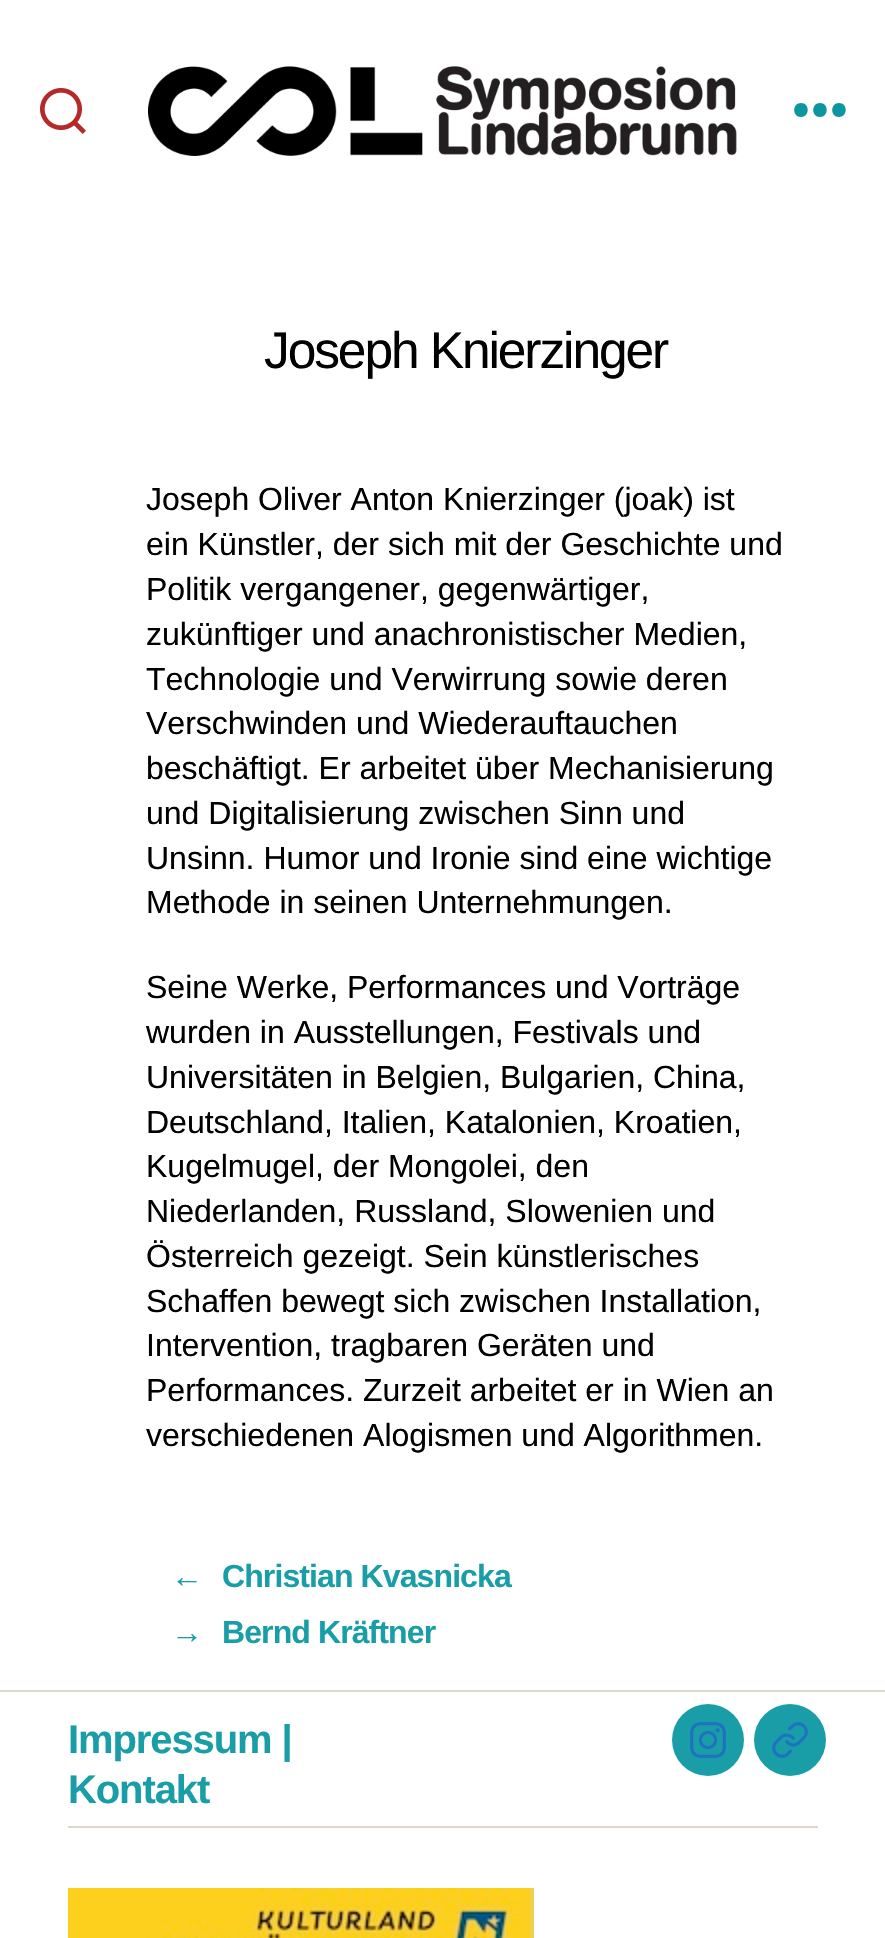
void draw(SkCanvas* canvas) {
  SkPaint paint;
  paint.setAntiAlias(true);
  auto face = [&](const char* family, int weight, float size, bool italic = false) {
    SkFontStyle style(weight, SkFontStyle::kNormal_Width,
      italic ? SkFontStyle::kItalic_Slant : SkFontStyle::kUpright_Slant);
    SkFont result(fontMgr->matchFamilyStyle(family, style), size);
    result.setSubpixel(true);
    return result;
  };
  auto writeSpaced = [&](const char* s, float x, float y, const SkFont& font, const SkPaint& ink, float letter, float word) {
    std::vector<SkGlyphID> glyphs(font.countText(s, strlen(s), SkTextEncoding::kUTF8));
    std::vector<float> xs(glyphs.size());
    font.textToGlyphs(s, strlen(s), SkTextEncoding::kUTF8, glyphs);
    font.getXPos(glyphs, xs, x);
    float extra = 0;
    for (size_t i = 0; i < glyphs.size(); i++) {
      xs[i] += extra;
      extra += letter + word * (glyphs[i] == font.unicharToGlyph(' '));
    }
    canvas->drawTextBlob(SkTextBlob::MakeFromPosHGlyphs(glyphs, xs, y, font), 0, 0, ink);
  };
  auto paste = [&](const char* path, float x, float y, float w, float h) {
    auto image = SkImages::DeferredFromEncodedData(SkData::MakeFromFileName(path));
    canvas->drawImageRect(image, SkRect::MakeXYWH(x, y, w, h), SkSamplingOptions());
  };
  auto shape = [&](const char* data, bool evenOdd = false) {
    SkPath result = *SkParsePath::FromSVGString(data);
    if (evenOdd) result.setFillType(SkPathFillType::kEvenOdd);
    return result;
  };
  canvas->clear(0xffffffff);
  paste("img/1.png", 40, 88, 46, 46);
  paste("img/2.png", 148, 66, 589, 90);
  paint.setColor(0xff0b96a0);
  canvas->drawPath(shape("M801 117C792 117 792 103 801 103C810 103 810 117 801 117ZM820 117C811 117 811 103 820 103C829 103 829 117 820 117ZM839 117C830 117 830 103 839 103C848 103 848 117 839 117Z", true), paint);
  paint.setColor(0xffdcd7ca);
  canvas->drawRect(SkRect::MakeXYWH(0, 1690, 885, 2), paint);
  canvas->drawRect(SkRect::MakeXYWH(68, 1826, 750, 2), paint);
  paint.setColor(0xff199ea8);
  canvas->drawCircle(708, 1740, 36, paint);
  paste("img/3.png", 690, 1722, 36, 36);
  canvas->drawCircle(790, 1740, 36, paint);
  paste("img/4.png", 772, 1722, 36, 36);
  paste("img/5.png", 68, 1888, 466, 50);
  auto f0 = face("Liberation Sans", 400, 51.5f);
  paint.setColor(0xff000000);
  writeSpaced("Joseph Knierzinger", 264, 368, f0, paint, -2.1f, 0);
  auto f1 = face("Liberation Sans", 400, 32);
  {
    const struct { const char* s; float x, y; } items[] = {
      {"Joseph Oliver Anton Knierzinger (joak) ist", 146, 510},
      {"ein Künstler, der sich mit der Geschichte und", 146, 555},
      {"Politik vergangener, gegenwärtiger,", 146, 600},
      {"zukünftiger und anachronistischer Medien,", 146, 645},
      {"Technologie und Verwirrung sowie deren", 146, 690},
      {"Verschwinden und Wiederauftauchen", 146, 734},
      {"beschäftigt. Er arbeitet über Mechanisierung", 146, 779},
      {"und Digitalisierung zwischen Sinn und", 146, 824},
      {"Unsinn. Humor und Ironie sind eine wichtige", 146, 869},
      {"Methode in seinen Unternehmungen.", 146, 913},
      {"Seine Werke, Performances und Vorträge", 146, 998},
      {"wurden in Ausstellungen, Festivals und", 146, 1043},
      {"Universitäten in Belgien, Bulgarien, China,", 146, 1088},
      {"Deutschland, Italien, Katalonien, Kroatien,", 146, 1133},
      {"Kugelmugel, der Mongolei, den", 146, 1177},
      {"Niederlanden, Russland, Slowenien und", 146, 1222},
      {"Österreich gezeigt. Sein künstlerisches", 146, 1267},
      {"Schaffen bewegt sich zwischen Installation,", 146, 1312},
      {"Intervention, tragbaren Geräten und", 146, 1356},
      {"Performances. Zurzeit arbeitet er in Wien an", 146, 1401},
      {"verschiedenen Alogismen und Algorithmen.", 146, 1446},
    };
    for (auto [s, x, y] : items) {
      canvas->drawString(s, x, y, f1, paint);
    }
  }
  auto f2 = face("Liberation Sans", 700, 32);
  paint.setColor(0xff199ea8);
  {
    const struct { const char* s; float x, y; } items[] = {
      {"←", 171, 1587},
      {"Christian Kvasnicka", 222, 1587},
      {"→", 171, 1643},
      {"Bernd Kräftner", 222, 1643},
    };
    for (auto [s, x, y] : items) {
      writeSpaced(s, x, y, f2, paint, -0.9f, 0);
    }
  }
  auto f3 = face("Liberation Sans", 700, 40);
  writeSpaced("Impressum |", 68, 1753, f3, paint, -1.1f, 0);
  writeSpaced("Kontakt", 68, 1803, f3, paint, -1.1f, 0);
}
